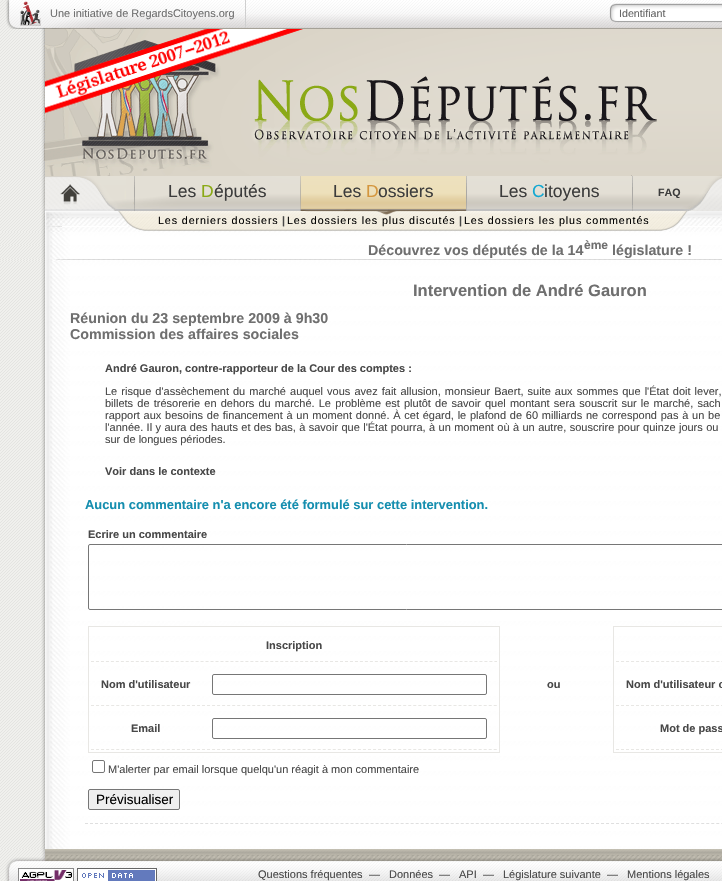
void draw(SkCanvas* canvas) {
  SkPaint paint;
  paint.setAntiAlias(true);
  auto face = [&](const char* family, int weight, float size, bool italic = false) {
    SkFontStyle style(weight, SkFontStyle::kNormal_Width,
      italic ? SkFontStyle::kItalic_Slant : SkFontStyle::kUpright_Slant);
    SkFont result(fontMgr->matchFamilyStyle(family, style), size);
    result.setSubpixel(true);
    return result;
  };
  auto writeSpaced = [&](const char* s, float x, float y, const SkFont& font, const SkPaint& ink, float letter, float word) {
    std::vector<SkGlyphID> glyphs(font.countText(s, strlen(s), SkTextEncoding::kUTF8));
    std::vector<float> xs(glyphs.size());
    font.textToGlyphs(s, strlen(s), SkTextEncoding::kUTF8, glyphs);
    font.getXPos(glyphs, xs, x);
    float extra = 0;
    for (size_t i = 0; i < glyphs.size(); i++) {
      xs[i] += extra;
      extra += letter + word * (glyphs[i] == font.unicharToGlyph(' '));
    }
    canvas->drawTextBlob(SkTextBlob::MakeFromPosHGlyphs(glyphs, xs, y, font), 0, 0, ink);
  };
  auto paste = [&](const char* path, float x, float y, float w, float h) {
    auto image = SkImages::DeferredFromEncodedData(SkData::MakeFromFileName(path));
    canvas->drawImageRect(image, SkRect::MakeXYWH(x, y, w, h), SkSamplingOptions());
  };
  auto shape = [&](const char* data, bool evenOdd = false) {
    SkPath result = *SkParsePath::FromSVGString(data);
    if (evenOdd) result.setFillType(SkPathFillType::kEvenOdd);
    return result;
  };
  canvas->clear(0xffffffff);
  paste("img/1.png", 0, 261, 41, 588);
  paste("img/2.png", 0, 0, 722, 29);
  paste("img/3.png", 20, 1, 21, 25);
  paint.setColor(0xffcfcfcf);
  canvas->drawRect(SkRect::MakeXYWH(245, 0, 1, 28), paint);
  paste("img/4.png", 609, 3, 113, 20);
  paste("img/5.png", 0, 29, 722, 147);
  paste("img/6.png", 44, 29, 613, 147);
  paste("img/7.png", 0, 176, 722, 35);
  paste("img/8.png", 62, 185, 72, 26);
  paste("img/9.png", 134, 179, 1, 32);
  paste("img/10.png", 300, 176, 166, 35);
  paste("img/11.png", 466, 186, 1, 25);
  paste("img/12.png", 0, 232, 722, 29);
  paste("img/13.png", 0, 211, 722, 21);
  paste("img/14.png", 41, 261, 681, 588);
  paint.setStroke(true);
  paint.setStrokeWidth(1);
  paint.setColor(0xffdfdfdf);
  paint.setPathEffect(SkDashPathEffect::Make({{3, 2.01f}}, 0));
  canvas->drawPath(shape("M85 823.5H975"), paint);
  paint.setPathEffect(nullptr);
  paint.setColor(0xff767676);
  canvas->drawRoundRect(SkRect::MakeXYWH(88.5f, 544.5f, 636, 65), 1.5f, 1.5f, paint);
  paint.setColor(0xffe8e7e4);
  canvas->drawRect(SkRect::MakeXYWH(88.5f, 626.5f, 411, 126), paint);
  paint.setPathEffect(SkDashPathEffect::Make({{3, 1.98f}}, 0));
  canvas->drawPath(shape("M91 661.5H497"), paint);
  paint.setPathEffect(nullptr);
  paint.setPathEffect(SkDashPathEffect::Make({{3, 2.05f}}, 0));
  canvas->drawPath(shape("M91 705.5H200"), paint);
  paint.setPathEffect(nullptr);
  paint.setPathEffect(SkDashPathEffect::Make({{3, 2.03f}}, 0));
  canvas->drawPath(shape("M202 705.5H497"), paint);
  paint.setPathEffect(nullptr);
  paint.setColor(0xff767676);
  canvas->drawRoundRect(SkRect::MakeXYWH(212.5f, 674.5f, 274, 20), 1.5f, 1.5f, paint);
  paint.setColor(0xffe8e7e4);
  paint.setPathEffect(SkDashPathEffect::Make({{3, 2.05f}}, 0));
  canvas->drawPath(shape("M91 749.5H200"), paint);
  paint.setPathEffect(nullptr);
  paint.setPathEffect(SkDashPathEffect::Make({{3, 2.03f}}, 0));
  canvas->drawPath(shape("M202 749.5H497"), paint);
  paint.setPathEffect(nullptr);
  paint.setColor(0xff767676);
  canvas->drawRoundRect(SkRect::MakeXYWH(212.5f, 718.5f, 274, 20), 1.5f, 1.5f, paint);
  paint.setColor(0xffe8e7e4);
  canvas->drawRect(SkRect::MakeXYWH(613.5f, 626.5f, 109, 126), paint);
  paint.setPathEffect(SkDashPathEffect::Make({{3, 2.02f}}, 0));
  canvas->drawPath(shape("M616 661.5H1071"), paint);
  paint.setPathEffect(nullptr);
  paint.setPathEffect(SkDashPathEffect::Make({{3, 2}}, 0));
  canvas->drawPath(shape("M616 705.5H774"), paint);
  paint.setPathEffect(nullptr);
  paint.setPathEffect(SkDashPathEffect::Make({{3, 2}}, 0));
  canvas->drawPath(shape("M616 749.5H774"), paint);
  paint.setPathEffect(nullptr);
  paint.setColor(0xff767676);
  canvas->drawRoundRect(SkRect::MakeXYWH(92.5f, 760.5f, 12, 12), 1.5f, 1.5f, paint);
  paint.setStroke(false);
  paint.setColor(0xffefefef);
  canvas->drawRoundRect(SkRect::MakeXYWH(88.5f, 789.5f, 91, 20), 1.5f, 1.5f, paint);
  paint.setStroke(true);
  paint.setColor(0xff767676);
  canvas->drawRoundRect(SkRect::MakeXYWH(88.5f, 789.5f, 91, 20), 1.5f, 1.5f, paint);
  paste("img/15.png", 0, 849, 722, 32);
  paste("img/16.png", 18, 868, 56, 13);
  paste("img/17.png", 77, 868, 80, 13);
  auto f0 = face("Liberation Sans", 400, 11);
  paint.setStroke(false);
  paint.setColor(0xff6f6f6f);
  canvas->drawString("Une initiative de RegardsCitoyens.org", 50, 17, f0, paint);
  auto f1 = face("Liberation Sans", 400, 10.7f);
  paint.setColor(0xff656565);
  canvas->drawString("Identifiant", 619, 17, f1, paint);
  auto f2 = face("Liberation Sans", 400, 17.5f);
  paint.setColor(0xff3c3c3c);
  canvas->drawString("Les", 168, 197, f2, paint);
  paint.setColor(0xff8aa915);
  canvas->drawString("D", 201, 197, f2, paint);
  paint.setColor(0xff3c3c3c);
  canvas->drawString("éputés", 214, 197, f2, paint);
  canvas->drawString("Les", 333, 197, f2, paint);
  paint.setColor(0xffd4963e);
  canvas->drawString("D", 366, 197, f2, paint);
  paint.setColor(0xff3c3c3c);
  canvas->drawString("ossiers", 378, 197, f2, paint);
  canvas->drawString("Les", 499, 197, f2, paint);
  paint.setColor(0xff12a8d2);
  canvas->drawString("C", 532, 197, f2, paint);
  paint.setColor(0xff3c3c3c);
  canvas->drawString("itoyens", 544, 197, f2, paint);
  auto f3 = face("Liberation Sans", 700, 10.7f);
  canvas->drawString("FAQ", 658, 196, f3, paint);
  paint.setColor(0xff000000);
  writeSpaced("Les derniers dossiers", 158, 224, f1, paint, 0.9f, 0);
  paint.setColor(0xff484848);
  canvas->drawString("|", 282, 224, f3, paint);
  paint.setColor(0xff000000);
  writeSpaced("Les dossiers les plus discutés", 287, 224, f1, paint, 0.9f, 0);
  paint.setColor(0xff484848);
  canvas->drawString("|", 459, 224, f3, paint);
  paint.setColor(0xff000000);
  writeSpaced("Les dossiers les plus commentés", 464, 224, f1, paint, 0.9f, 0);
  auto f4 = face("Liberation Sans", 700, 14.25f);
  paint.setColor(0xff6f6f6f);
  canvas->drawString("Découvrez vos députés de la 14", 368, 255, f4, paint);
  auto f5 = face("Liberation Sans", 700, 12);
  canvas->drawString("ème", 584, 249, f5, paint);
  canvas->drawString("législature !", 612, 255, f4, paint);
  auto f6 = face("Liberation Sans", 700, 16.5f);
  canvas->drawString("Intervention de André Gauron", 413, 296, f6, paint);
  canvas->drawString("Réunion du 23 septembre 2009 à 9h30", 70, 323, f4, paint);
  canvas->drawString("Commission des affaires sociales", 70, 339, f4, paint);
  auto f7 = face("Liberation Sans", 700, 11);
  paint.setColor(0xff484848);
  canvas->drawString("André Gauron, contre-rapporteur de la Cour des comptes :", 105, 372, f7, paint);
  writeSpaced("Le risque d'assèchement du marché auquel vous avez fait allusion, monsieur Baert, suite aux sommes que l'État doit lever,", 105, 395, f0, paint, 0, 1);
  writeSpaced("billets de trésorerie en dehors du marché. Le problème est plutôt de savoir quel montant sera souscrit sur le marché, sach", 105, 407, f0, paint, 0, 1.1f);
  writeSpaced("rapport aux besoins de financement à un moment donné. À cet égard, le plafond de 60 milliards ne correspond pas à un be", 105, 419, f0, paint, 0, 0.7f);
  writeSpaced("l'année. Il y aura des hauts et des bas, à savoir que l'État pourra, à un moment où à un autre, souscrire pour quinze jours ou", 105, 431, f0, paint, 0, 0.35f);
  canvas->drawString("sur de longues périodes.", 105, 443, f0, paint);
  canvas->drawString("Voir dans le contexte", 105, 475, f7, paint);
  auto f8 = face("Liberation Sans", 700, 12.9f);
  paint.setColor(0xff158eaf);
  canvas->drawString("Aucun commentaire n'a encore été formulé sur cette intervention.", 85, 509, f8, paint);
  paint.setColor(0xff484848);
  {
    const struct { const char* s; float x, y; } items[] = {
      {"Ecrire un commentaire", 88, 538},
      {"Inscription", 266, 649},
      {"Nom d'utilisateur", 101, 688},
      {"Email", 131, 732},
      {"ou", 547, 688},
      {"Nom d'utilisateur o", 626, 688},
      {"Mot de pass", 660, 732},
    };
    for (auto [s, x, y] : items) {
      canvas->drawString(s, x, y, f7, paint);
    }
  }
  canvas->drawString("M'alerter par email lorsque quelqu'un réagit à mon commentaire", 108, 773, f0, paint);
  auto f9 = face("Liberation Sans", 400, 13.5f);
  paint.setColor(0xff000000);
  canvas->drawString("Prévisualiser", 96, 804, f9, paint);
  paint.setColor(0xff484848);
  {
    const struct { const char* s; float x, y; } items[] = {
      {"Questions fréquentes", 258, 878},
      {"—", 369, 878},
      {"Données", 389, 878},
      {"—", 439, 878},
      {"API", 459, 878},
      {"—", 483, 878},
      {"Législature suivante", 503, 878},
      {"—", 607, 878},
      {"Mentions légales", 627, 878},
    };
    for (auto [s, x, y] : items) {
      canvas->drawString(s, x, y, f0, paint);
    }
  }
}
